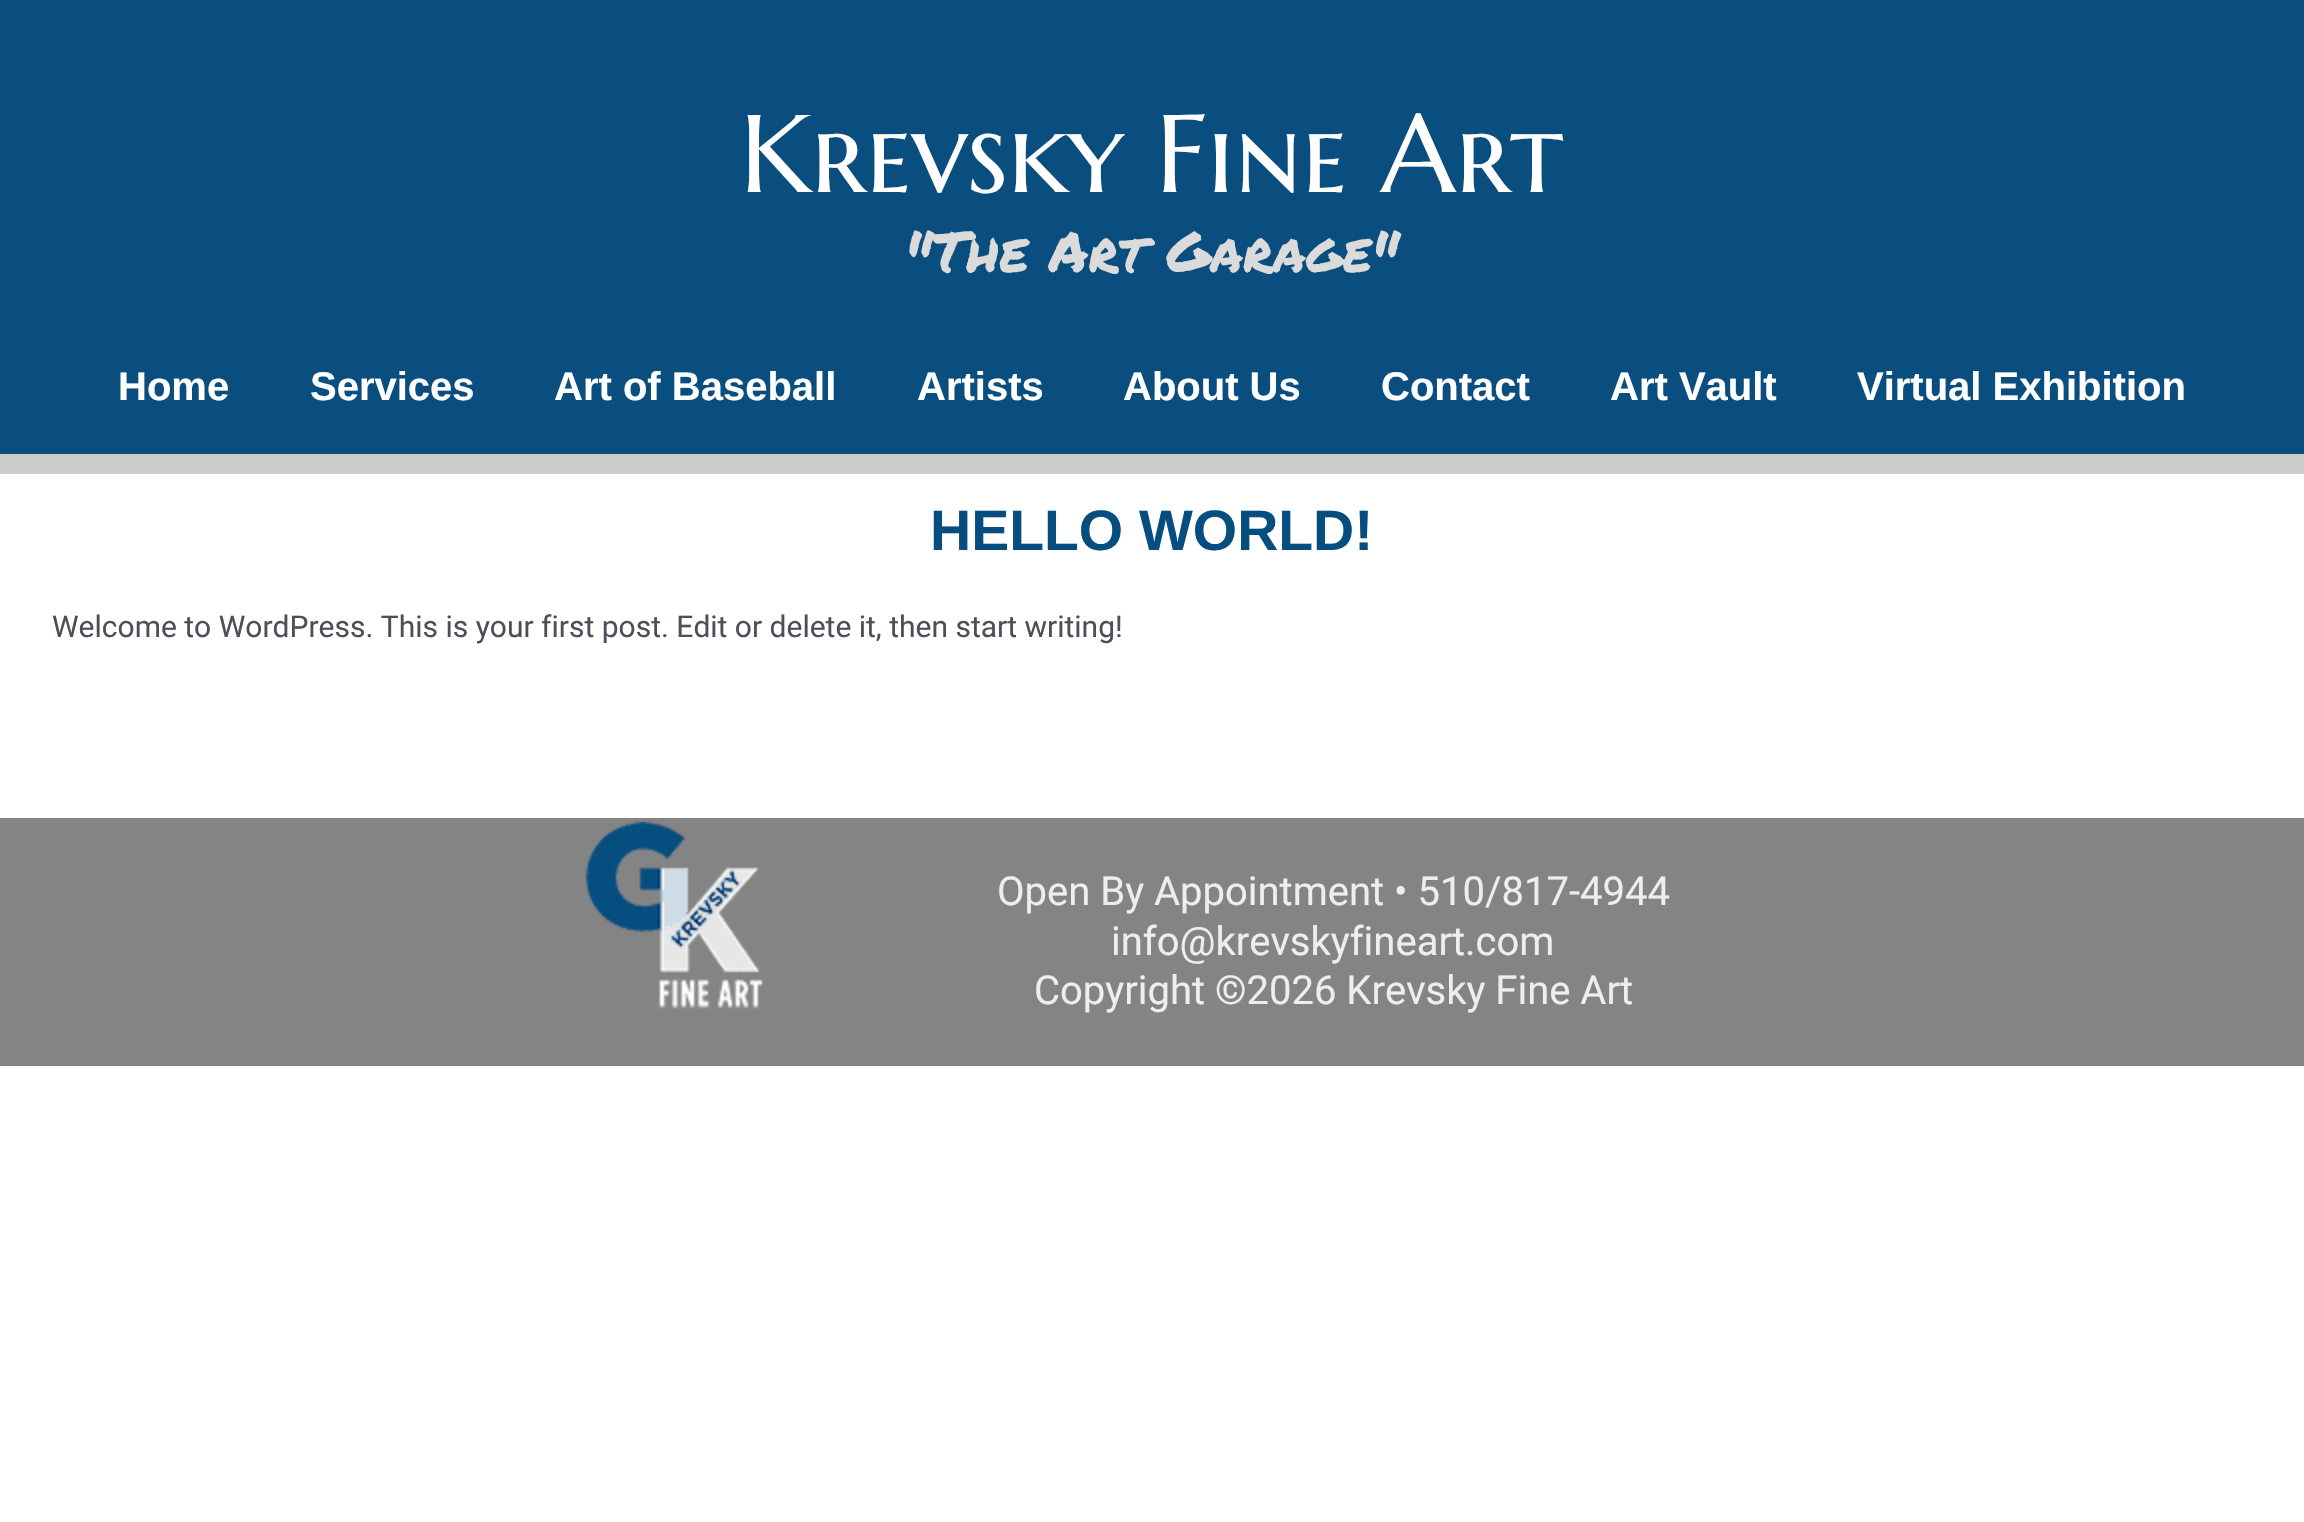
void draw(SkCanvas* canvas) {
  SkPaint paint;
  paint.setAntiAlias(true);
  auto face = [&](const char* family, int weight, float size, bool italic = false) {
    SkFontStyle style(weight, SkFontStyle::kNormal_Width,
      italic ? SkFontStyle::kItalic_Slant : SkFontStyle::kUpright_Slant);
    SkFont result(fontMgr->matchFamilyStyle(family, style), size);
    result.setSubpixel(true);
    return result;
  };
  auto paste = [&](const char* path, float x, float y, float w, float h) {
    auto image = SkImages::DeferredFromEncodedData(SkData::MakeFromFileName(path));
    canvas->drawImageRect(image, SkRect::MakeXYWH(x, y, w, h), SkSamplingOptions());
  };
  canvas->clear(0xffffffff);
  {
    const struct { float x, y, w, h; SkColor color; } items[] = {
      {0, 0, 2304, 454, 0xff0a4e7f},
      {0, 454, 2304, 20, 0xffcccccc},
      {0, 818, 2304, 248, 0xff848484},
    };
    for (auto [x, y, w, h, color] : items) {
      paint.setColor(color);
      canvas->drawRect(SkRect::MakeXYWH(x, y, w, h), paint);
    }
  }
  paste("img/1.png", 585, 821, 178, 188);
  auto f0 = face("Marcellus SC", 400, 110);
  paint.setColor(0xffffffff);
  canvas->drawString("Krevsky Fine Art", 740, 192, f0, paint);
  auto f1 = face("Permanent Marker", 400, 56);
  paint.setColor(0xffdbdbdb);
  canvas->drawString("\"The Art Garage\"", 905, 272, f1, paint);
  auto f2 = face("Liberation Sans", 700, 40);
  paint.setColor(0xffffffff);
  {
    const struct { const char* s; float x, y; } items[] = {
      {"Home", 118, 400},
      {"Services", 310, 400},
      {"Art of Baseball", 554, 400},
      {"Artists", 917, 400},
      {"About Us", 1123, 400},
      {"Contact", 1381, 400},
      {"Art Vault", 1610, 400},
      {"Virtual Exhibition", 1857, 400},
    };
    for (auto [s, x, y] : items) {
      canvas->drawString(s, x, y, f2, paint);
    }
  }
  auto f3 = face("Liberation Sans", 700, 57);
  paint.setColor(0xff064e7f);
  canvas->drawString("HELLO WORLD!", 930, 550, f3, paint);
  auto f4 = face("Roboto", 400, 30);
  paint.setColor(0xff4b4f58);
  canvas->drawString("Welcome to WordPress. This is your first post. Edit or delete it, then start writing!", 52, 637, f4, paint);
  auto f5 = face("Roboto", 400, 40);
  paint.setColor(0xffeeeeee);
  {
    const struct { const char* s; float x, y; } items[] = {
      {"Open By Appointment • 510/817-4944", 997, 905},
      {"info@krevskyfineart.com", 1111, 955},
      {"Copyright ©2026 Krevsky Fine Art", 1034, 1004},
    };
    for (auto [s, x, y] : items) {
      canvas->drawString(s, x, y, f5, paint);
    }
  }
}
